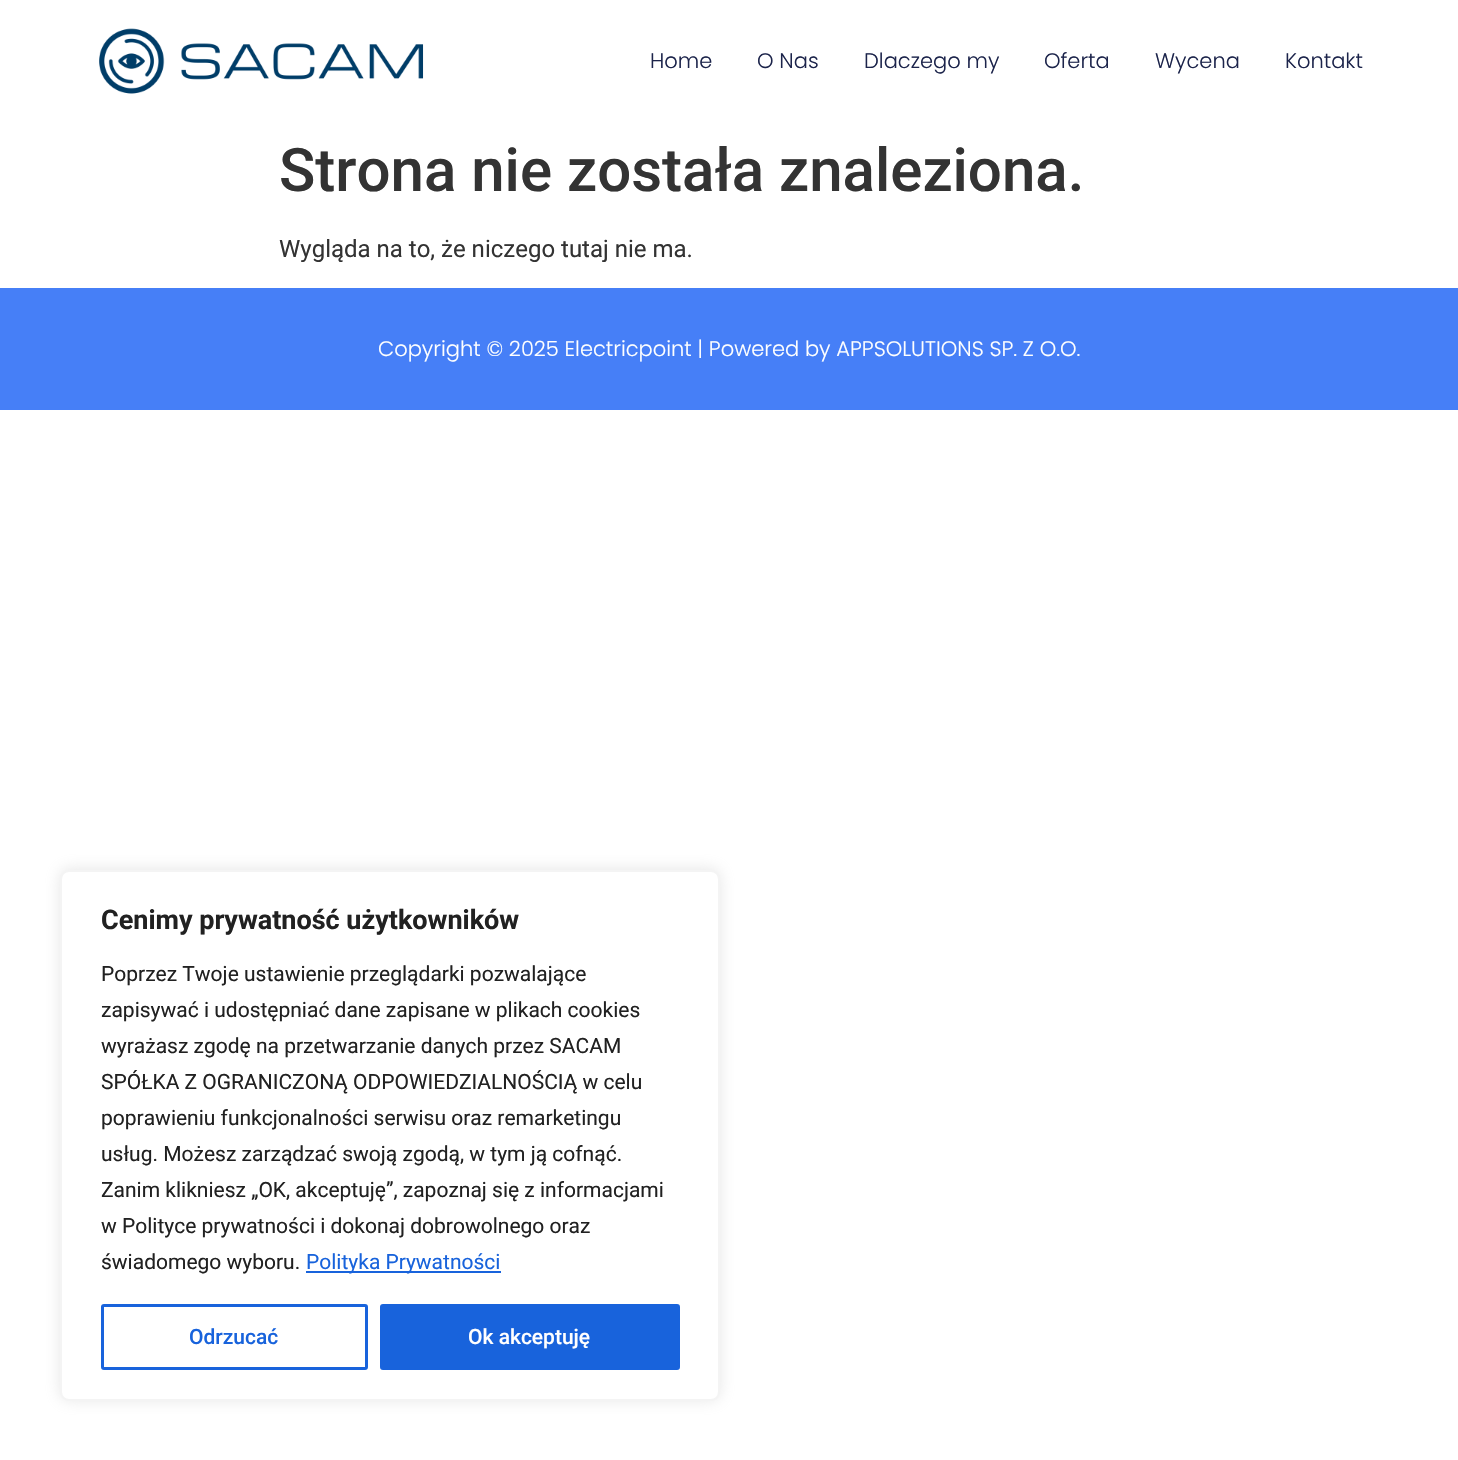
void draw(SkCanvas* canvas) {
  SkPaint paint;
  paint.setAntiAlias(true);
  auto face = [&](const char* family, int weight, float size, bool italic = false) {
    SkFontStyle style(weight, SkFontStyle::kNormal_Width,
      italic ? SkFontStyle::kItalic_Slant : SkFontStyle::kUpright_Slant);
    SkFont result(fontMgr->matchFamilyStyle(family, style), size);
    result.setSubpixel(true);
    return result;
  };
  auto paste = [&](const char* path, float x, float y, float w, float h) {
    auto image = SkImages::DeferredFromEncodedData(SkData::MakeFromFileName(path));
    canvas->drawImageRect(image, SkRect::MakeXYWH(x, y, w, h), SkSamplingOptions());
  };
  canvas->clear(0xffffffff);
  paste("img/1.png", 99, 28, 325, 66);
  paint.setColor(0xff467ff7);
  canvas->drawRect(SkRect::MakeXYWH(0, 288, 1458, 122), paint);
  paint.setColor(0x4dacabab);
  paint.setMaskFilter(SkMaskFilter::MakeBlur(kNormal_SkBlurStyle, 7.5f));
  canvas->drawRoundRect(SkRect::MakeXYWH(60, 869, 660, 531), 9, 9, paint);
  paint.setMaskFilter(nullptr);
  paint.setColor(0xffffffff);
  canvas->drawRoundRect(SkRect::MakeXYWH(61, 871, 658, 529), 8, 8, paint);
  paint.setStroke(true);
  paint.setStrokeWidth(2);
  paint.setColor(0xfff4f4f4);
  canvas->drawRoundRect(SkRect::MakeXYWH(61, 871, 658, 529), 8, 8, paint);
  paint.setStroke(false);
  paint.setColor(0xff1863dc);
  canvas->drawRect(SkRect::MakeXYWH(306, 1271, 195, 2), paint);
  paint.setStroke(true);
  paint.setStrokeWidth(3);
  canvas->drawRoundRect(SkRect::MakeXYWH(102.5f, 1305.5f, 264, 63), 1.5f, 1.5f, paint);
  paint.setStroke(false);
  canvas->drawRoundRect(SkRect::MakeXYWH(381.5f, 1305.5f, 297, 63), 1.5f, 1.5f, paint);
  paint.setStroke(true);
  canvas->drawRoundRect(SkRect::MakeXYWH(381.5f, 1305.5f, 297, 63), 1.5f, 1.5f, paint);
  auto f0 = face("Poppins", 300, 21);
  paint.setStroke(false);
  paint.setColor(0xff1c244b);
  {
    const struct { const char* s; float x, y; } items[] = {
      {"Home", 650, 68},
      {"O Nas", 757, 68},
      {"Dlaczego my", 864, 68},
      {"Oferta", 1044, 68},
      {"Wycena", 1155, 68},
      {"Kontakt", 1285, 68},
    };
    for (auto [s, x, y] : items) {
      canvas->drawString(s, x, y, f0, paint);
    }
  }
  auto f1 = face("Roboto", 500, 60);
  paint.setColor(0xff333333);
  canvas->drawString("Strona nie została znaleziona.", 279, 191, f1, paint);
  auto f2 = face("Roboto", 400, 24);
  canvas->drawString("Wygląda na to, że niczego tutaj nie ma.", 279, 257, f2, paint);
  paint.setColor(0xffffffff);
  canvas->drawString("Copyright © 2025 Electricpoint | Powered by APPSOLUTIONS SP. Z O.O.", 378, 356, f0, paint);
  auto f3 = face("Roboto", 700, 27);
  paint.setColor(0xff212121);
  canvas->drawString("Cenimy prywatność użytkowników", 101, 929, f3, paint);
  auto f4 = face("Roboto", 400, 21);
  {
    const struct { const char* s; float x, y; } items[] = {
      {"Poprzez Twoje ustawienie przeglądarki pozwalające", 101, 981},
      {"zapisywać i udostępniać dane zapisane w plikach cookies", 101, 1017},
      {"wyrażasz zgodę na przetwarzanie danych przez SACAM", 101, 1053},
      {"SPÓŁKA Z OGRANICZONĄ ODPOWIEDZIALNOŚCIĄ w celu", 101, 1089},
      {"poprawieniu funkcjonalności serwisu oraz remarketingu", 101, 1125},
      {"usług. Możesz zarządzać swoją zgodą, w tym ją cofnąć.", 101, 1161},
      {"Zanim klikniesz „OK, akceptuję”, zapoznaj się z informacjami", 101, 1197},
      {"w Polityce prywatności i dokonaj dobrowolnego oraz", 101, 1233},
      {"świadomego wyboru.", 101, 1269},
    };
    for (auto [s, x, y] : items) {
      canvas->drawString(s, x, y, f4, paint);
    }
  }
  paint.setColor(0xff1863dc);
  canvas->drawString("Polityka Prywatności", 306, 1269, f4, paint);
  auto f5 = face("Roboto", 500, 21);
  canvas->drawString("Odrzucać", 189, 1344, f5, paint);
  paint.setColor(0xffffffff);
  canvas->drawString("Ok akceptuję", 468, 1344, f5, paint);
}
